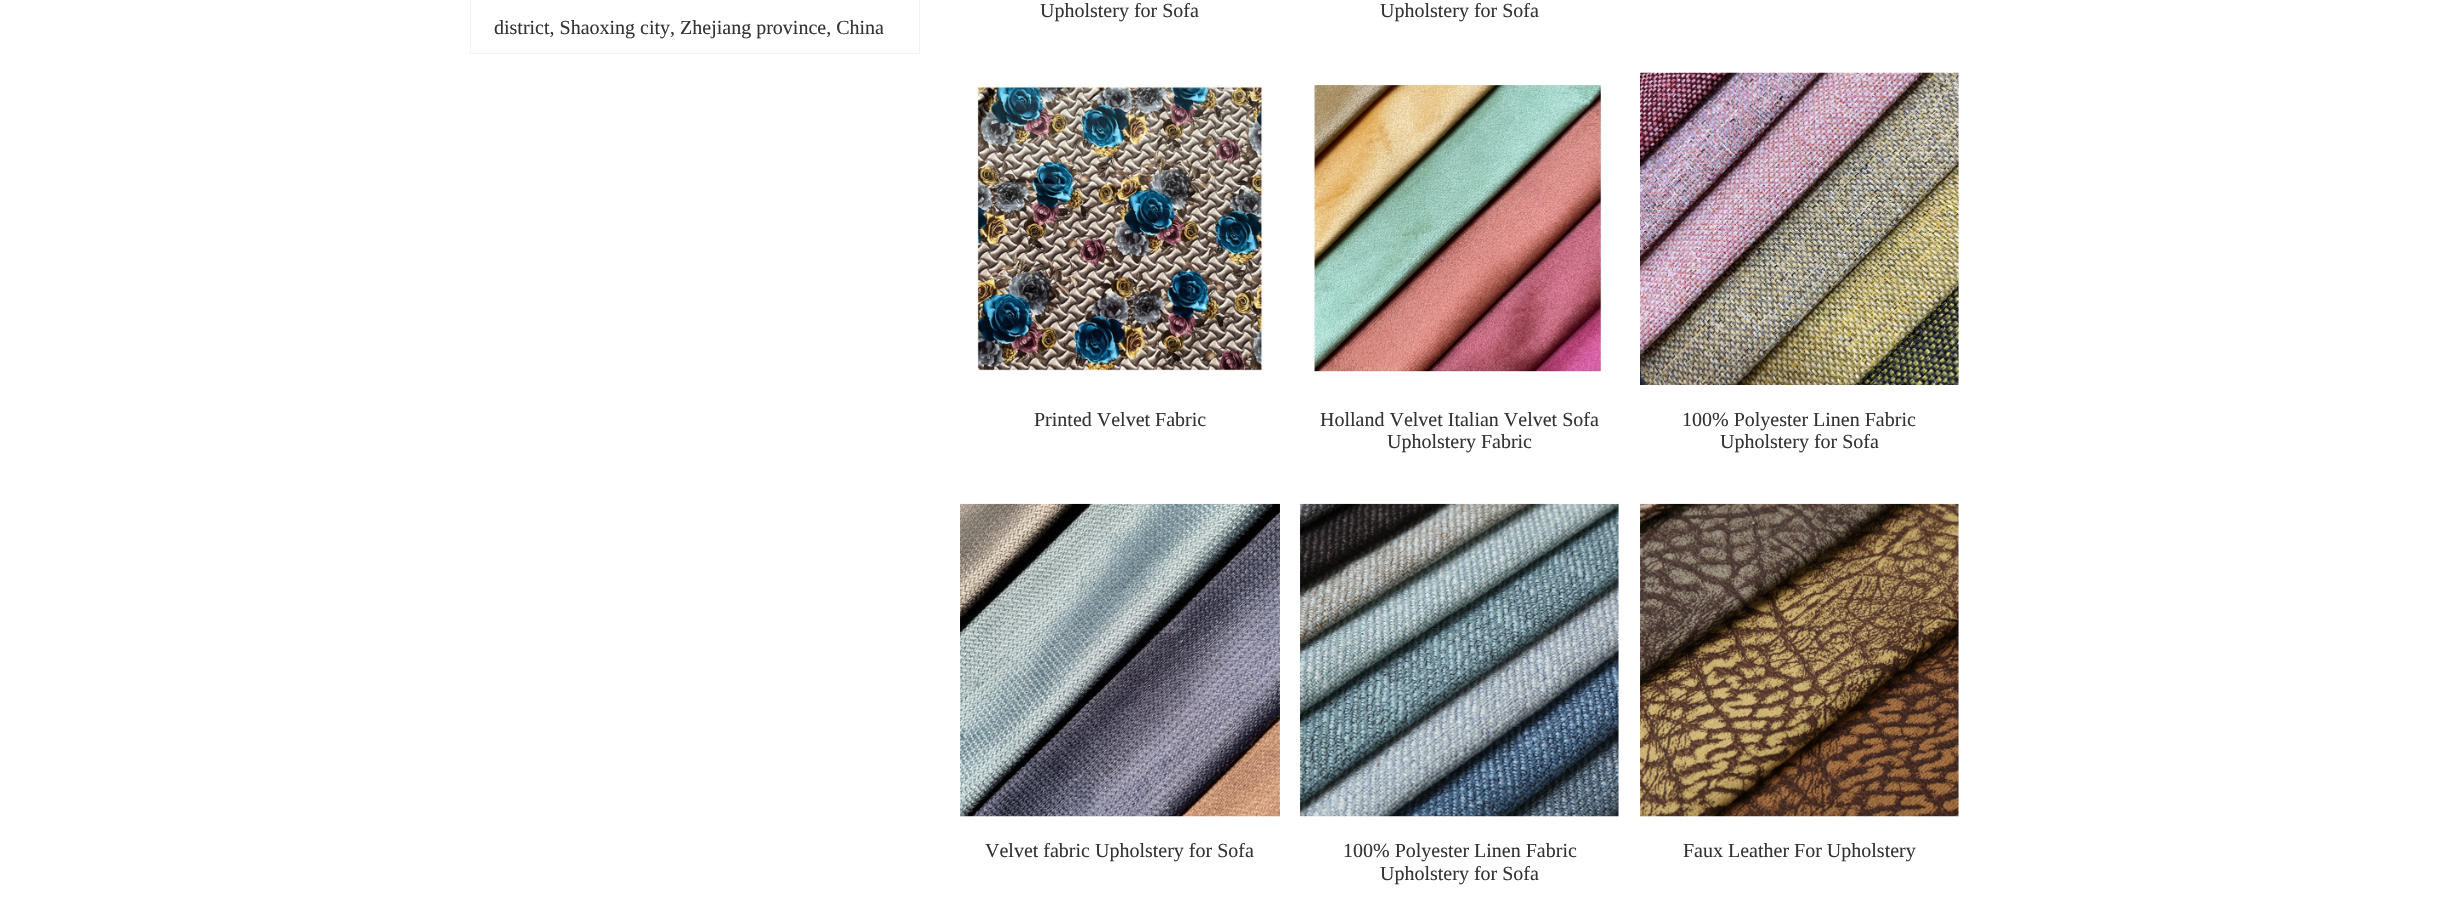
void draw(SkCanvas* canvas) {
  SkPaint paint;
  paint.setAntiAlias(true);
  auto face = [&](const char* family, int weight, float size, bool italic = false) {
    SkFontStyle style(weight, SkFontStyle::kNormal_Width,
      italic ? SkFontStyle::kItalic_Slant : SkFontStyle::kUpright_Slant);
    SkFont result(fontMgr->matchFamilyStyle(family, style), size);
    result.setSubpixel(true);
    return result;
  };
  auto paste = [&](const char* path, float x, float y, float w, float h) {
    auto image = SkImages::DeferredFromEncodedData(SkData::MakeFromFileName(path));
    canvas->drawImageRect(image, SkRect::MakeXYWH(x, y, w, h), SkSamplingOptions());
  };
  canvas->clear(0xffffffff);
  paint.setStroke(true);
  paint.setStrokeWidth(1);
  paint.setColor(0xfff2f2f2);
  canvas->drawRect(SkRect::MakeXYWH(470.5f, -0.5f, 449, 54), paint);
  paste("img/1.png", 976, 83, 289, 288);
  paste("img/2.png", 1313, 84, 289, 288);
  paste("img/3.png", 1640, 72, 319, 313);
  paste("img/4.png", 960, 503, 320, 314);
  paste("img/5.png", 1300, 503, 319, 314);
  paste("img/6.png", 1640, 503, 319, 314);
  auto f0 = face("Liberation Serif", 400, 20);
  paint.setStroke(false);
  paint.setColor(0xff333333);
  {
    const struct { const char* s; float x, y; } items[] = {
      {"district, Shaoxing city, Zhejiang province, China", 494, 34},
      {"Upholstery for Sofa", 1040, 17},
      {"Upholstery for Sofa", 1380, 17},
      {"Printed Velvet Fabric", 1034, 426},
      {"Holland Velvet Italian Velvet Sofa", 1320, 426},
      {"Upholstery Fabric", 1387, 448},
      {"100% Polyester Linen Fabric", 1682, 426},
      {"Upholstery for Sofa", 1720, 448},
      {"Velvet fabric Upholstery for Sofa", 985, 857},
      {"100% Polyester Linen Fabric", 1343, 857},
      {"Upholstery for Sofa", 1380, 880},
      {"Faux Leather For Upholstery", 1683, 857},
    };
    for (auto [s, x, y] : items) {
      canvas->drawString(s, x, y, f0, paint);
    }
  }
}
